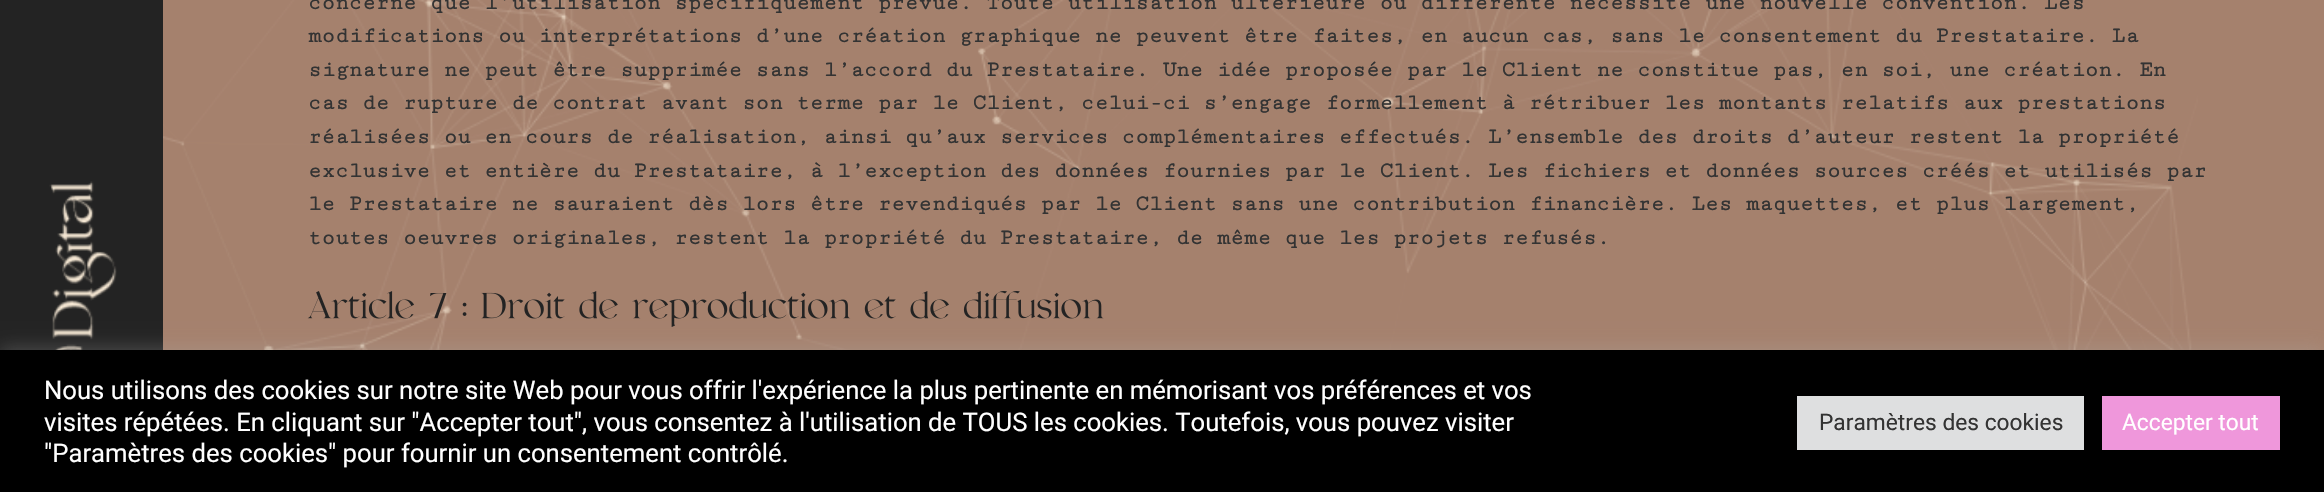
void draw(SkCanvas* canvas) {
  SkPaint paint;
  paint.setAntiAlias(true);
  auto face = [&](const char* family, int weight, float size, bool italic = false) {
    SkFontStyle style(weight, SkFontStyle::kNormal_Width,
      italic ? SkFontStyle::kItalic_Slant : SkFontStyle::kUpright_Slant);
    SkFont result(fontMgr->matchFamilyStyle(family, style), size);
    result.setSubpixel(true);
    return result;
  };
  auto paste = [&](const char* path, float x, float y, float w, float h) {
    auto image = SkImages::DeferredFromEncodedData(SkData::MakeFromFileName(path));
    canvas->drawImageRect(image, SkRect::MakeXYWH(x, y, w, h), SkSamplingOptions());
  };
  canvas->clear(0xffa5816d);
  paint.setColor(0xff232323);
  canvas->drawRect(SkRect::MakeXYWH(0, 0, 163, 350), paint);
  paste("img/1.png", 49, 181, 68, 169);
  paste("img/2.png", 163, 0, 2035, 350);
  paste("img/3.png", 307, 291, 797, 36);
  paint.setColor(0x4dacabab);
  paint.setMaskFilter(SkMaskFilter::MakeBlur(kNormal_SkBlurStyle, 9));
  canvas->drawRect(SkRect::MakeXYWH(0, 348, 2324, 144), paint);
  paint.setMaskFilter(nullptr);
  {
    const struct { float x, y, w, h; SkColor color; } items[] = {
      {0, 350, 2324, 142, 0xff000000},
      {1797, 396, 287, 54, 0xffdedfe0},
      {2102, 396, 178, 54, 0xffef97db},
    };
    for (auto [x, y, w, h, color] : items) {
      paint.setColor(color);
      canvas->drawRect(SkRect::MakeXYWH(x, y, w, h), paint);
    }
  }
  auto f0 = face("Cutive Mono", 700, 22.4f);
  paint.setColor(0xff333333);
  {
    const struct { const char* s; float x, y; } items[] = {
      {"concerne que l’utilisation spécifiquement prévue. Toute utilisation ultérieure ou différente nécessite une nouvelle convention. Les", 308, 9},
      {"modifications ou interprétations d’une création graphique ne peuvent être faites, en aucun cas, sans le consentement du Prestataire. La", 308, 42},
      {"signature ne peut être supprimée sans l’accord du Prestataire. Une idée proposée par le Client ne constitue pas, en soi, une création. En", 308, 76},
      {"cas de rupture de contrat avant son terme par le Client, celui-ci s’engage formellement à rétribuer les montants relatifs aux prestations", 308, 109},
      {"réalisées ou en cours de réalisation, ainsi qu’aux services complémentaires effectués. L’ensemble des droits d’auteur restent la propriété", 308, 143},
      {"exclusive et entière du Prestataire, à l’exception des données fournies par le Client. Les fichiers et données sources créés et utilisés par", 308, 177},
      {"le Prestataire ne sauraient dès lors être revendiqués par le Client sans une contribution financière. Les maquettes, et plus largement,", 308, 210},
      {"toutes oeuvres originales, restent la propriété du Prestataire, de même que les projets refusés.", 308, 244},
    };
    for (auto [s, x, y] : items) {
      canvas->drawString(s, x, y, f0, paint);
    }
  }
  auto f1 = face("Roboto", 400, 25.67f);
  paint.setColor(0xffffffff);
  {
    const struct { const char* s; float x, y; } items[] = {
      {"Nous utilisons des cookies sur notre site Web pour vous offrir l'expérience la plus pertinente en mémorisant vos préférences et vos", 44, 399},
      {"visites répétées. En cliquant sur \"Accepter tout\", vous consentez à l'utilisation de TOUS les cookies. Toutefois, vous pouvez visiter", 44, 431},
      {"\"Paramètres des cookies\" pour fournir un consentement contrôlé.", 44, 462},
    };
    for (auto [s, x, y] : items) {
      canvas->drawString(s, x, y, f1, paint);
    }
  }
  auto f2 = face("Roboto", 400, 22.75f);
  paint.setColor(0xff333333);
  canvas->drawString("Paramètres des cookies", 1819, 430, f2, paint);
  paint.setColor(0xffffffff);
  canvas->drawString("Accepter tout", 2122, 430, f2, paint);
}
